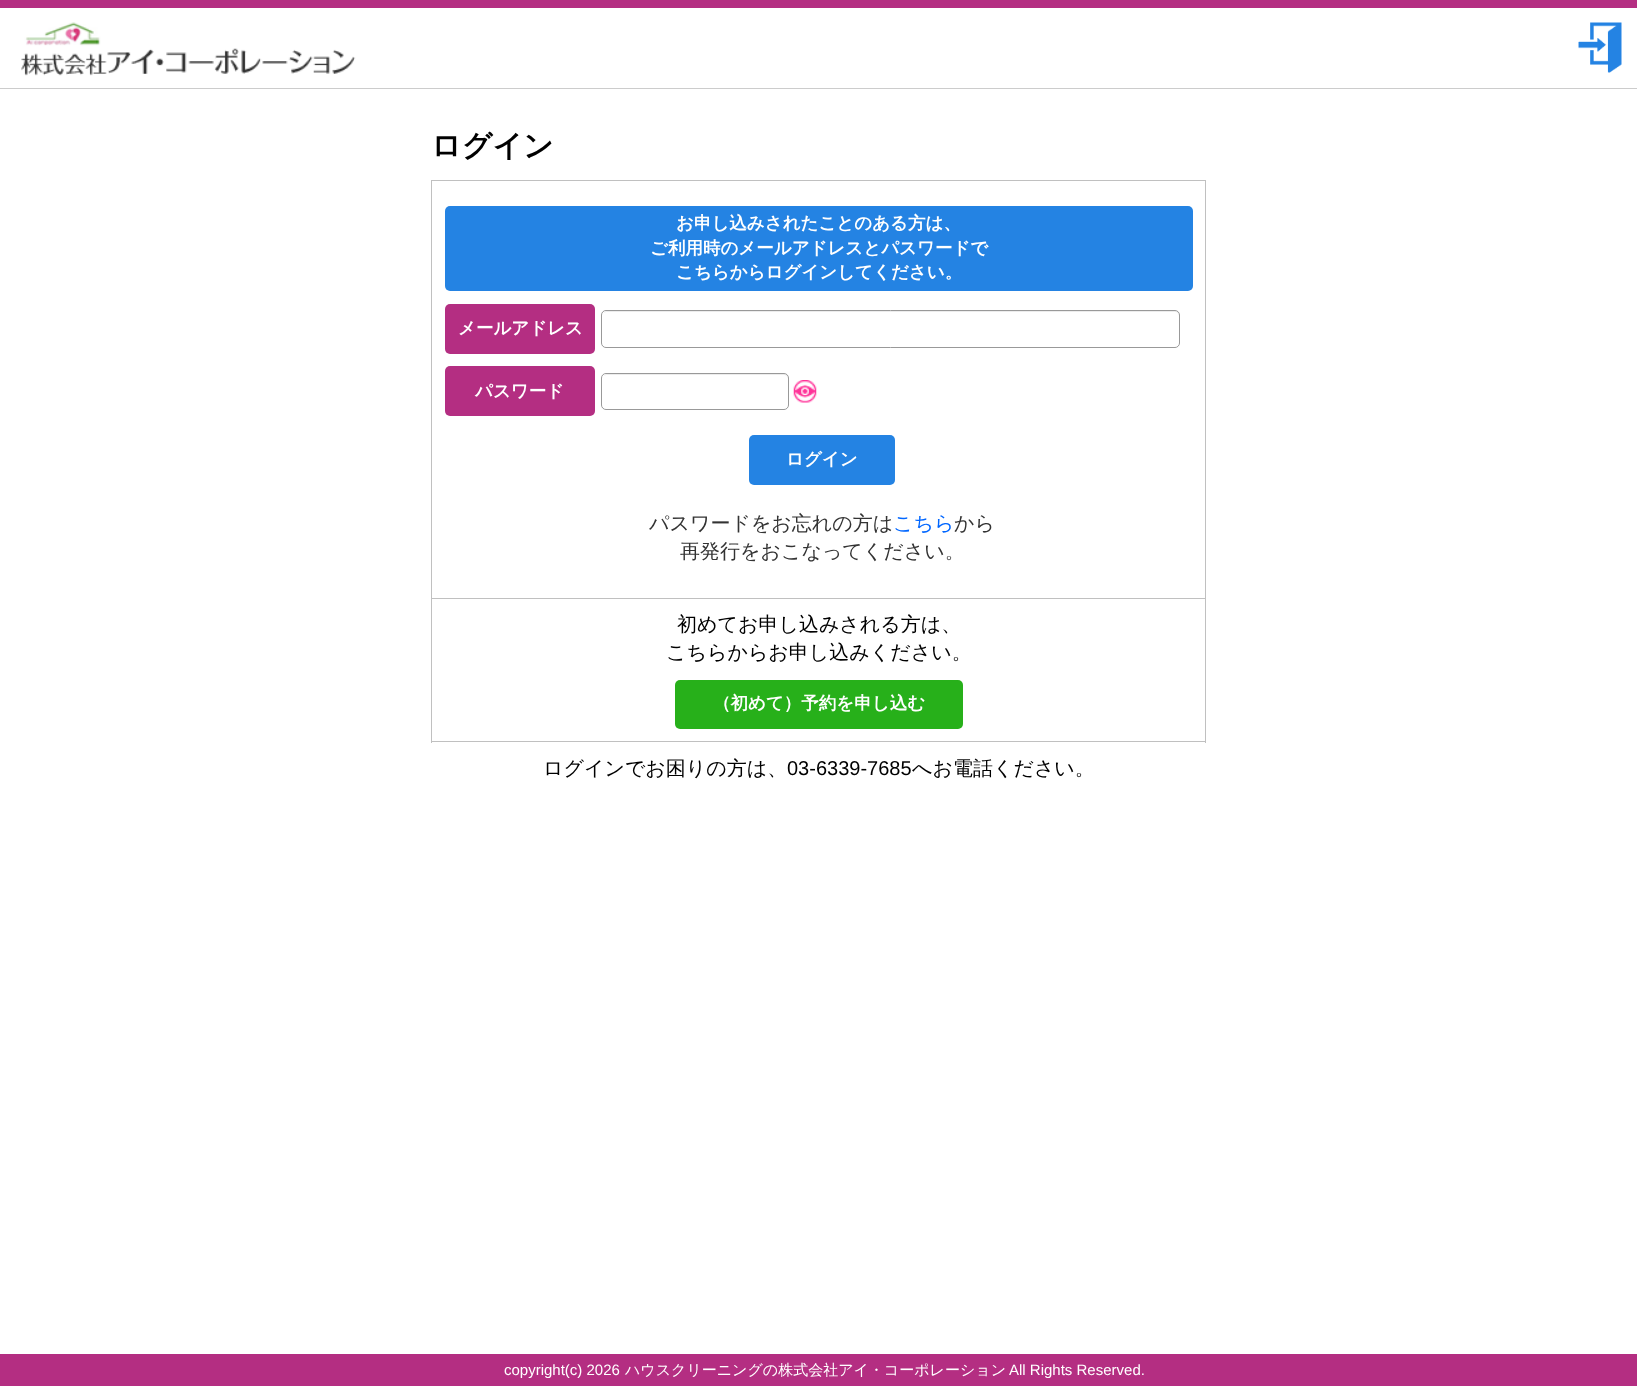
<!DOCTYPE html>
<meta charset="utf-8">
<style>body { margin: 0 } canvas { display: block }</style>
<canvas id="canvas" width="1637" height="1386"></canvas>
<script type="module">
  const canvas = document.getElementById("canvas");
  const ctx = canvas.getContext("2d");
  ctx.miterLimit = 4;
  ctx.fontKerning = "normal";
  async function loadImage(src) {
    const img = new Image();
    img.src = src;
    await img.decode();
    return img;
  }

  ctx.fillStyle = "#ffffff";
  ctx.fillRect(0, 0, 1637, 1386);
  ctx.fillStyle = "#b42e82";
  ctx.fillRect(0, 0, 1637, 8);
  ctx.drawImage(await loadImage("img1.png"), 21, 22, 335, 54);
  ctx.drawImage(await loadImage("img2.png"), 1578, 22, 44, 51);
  ctx.fillStyle = "#cccccc";
  ctx.fillRect(0, 88, 1637, 1);
  ctx.font = "bold 30px WenQuanYi Zen Hei";
  ctx.fillStyle = "#000000";
  ctx.fillText("ログイン", 431, 156);
  ctx.fillStyle = "#c0c0c0";
  ctx.fillRect(431, 180, 775, 1);
  ctx.fillRect(431, 598, 775, 1);
  ctx.fillRect(1205, 598, 1, 145);
  ctx.fillRect(1205, 180, 1, 419);
  ctx.fillRect(431, 741, 775, 1);
  ctx.fillRect(431, 598, 1, 145);
  ctx.fillRect(431, 180, 1, 419);
  ctx.fillStyle = "#2483e3";
  ctx.beginPath();
  ctx.roundRect(445, 206, 748, 85, 5);
  ctx.fill();
  ctx.font = "bold 17.5px WenQuanYi Zen Hei";
  ctx.fillStyle = "#ffffff";
  ctx.fillText("お申し込みされたことのある方は、", 676, 229);
  ctx.fillText("ご利用時のメールアドレスとパスワードで", 650, 254);
  ctx.fillText("こちらからログインしてください。", 676, 278);
  ctx.fillStyle = "#b42e82";
  ctx.beginPath();
  ctx.roundRect(445, 304, 150, 50, 5);
  ctx.fill();
  ctx.fillStyle = "#ffffff";
  ctx.fillText("メールアドレス", 458, 334);
  ctx.fillStyle = "#ececec";
  ctx.beginPath();
  ctx.moveTo(606, 312);
  ctx.lineTo(1175, 312);
  ctx.bezierCurveTo(1177, 312, 1179, 314, 1179, 316);
  ctx.lineTo(1179, 315);
  ctx.bezierCurveTo(1179, 313, 1177, 311, 1175, 311);
  ctx.lineTo(607, 311);
  ctx.bezierCurveTo(606, 311, 604, 312, 604, 313);
  ctx.closePath();
  ctx.fill();
  ctx.beginPath();
  ctx.roundRect(601.5, 310.5, 578, 37, 4.5);
  ctx.strokeStyle = "#999999";
  ctx.stroke();
  ctx.fillStyle = "#b42e82";
  ctx.beginPath();
  ctx.roundRect(445, 366, 150, 50, 5);
  ctx.fill();
  ctx.fillStyle = "#ffffff";
  ctx.fillText("パスワード", 475, 397);
  ctx.fillStyle = "#ececec";
  ctx.beginPath();
  ctx.moveTo(606, 375);
  ctx.lineTo(784, 375);
  ctx.bezierCurveTo(786, 375, 788, 377, 788, 379);
  ctx.lineTo(788, 378);
  ctx.bezierCurveTo(788, 376, 786, 374, 784, 374);
  ctx.lineTo(607, 374);
  ctx.bezierCurveTo(606, 374, 604, 375, 604, 376);
  ctx.closePath();
  ctx.fill();
  ctx.beginPath();
  ctx.roundRect(601.5, 373.5, 187, 36, 4.5);
  ctx.stroke();
  ctx.drawImage(await loadImage("img3.png"), 793, 380, 24, 23);
  ctx.fillStyle = "#2483e3";
  ctx.beginPath();
  ctx.roundRect(749, 435, 146, 50, 5);
  ctx.fill();
  ctx.fillStyle = "#ffffff";
  ctx.fillText("ログイン", 786, 465);
  ctx.font = "500 20px WenQuanYi Zen Hei";
  ctx.fillStyle = "#333333";
  ctx.fillText("パスワードをお忘れの方は", 649, 530);
  ctx.fillStyle = "#0066ff";
  ctx.fillText("こちら", 893, 530);
  ctx.fillStyle = "#333333";
  ctx.fillText("から", 954, 530);
  ctx.fillText("再発行をおこなってください。", 680, 558);
  ctx.fillStyle = "#000000";
  ctx.fillText("初めてお申し込みされる方は、", 677, 631);
  ctx.fillText("こちらからお申し込みください。", 666, 659);
  ctx.fillStyle = "#27b01a";
  ctx.beginPath();
  ctx.roundRect(675, 680, 288, 49, 5);
  ctx.fill();
  ctx.font = "bold 17.5px WenQuanYi Zen Hei";
  ctx.fillStyle = "#ffffff";
  ctx.fillText("（初めて）予約を申し込む", 713, 709);
  ctx.font = "500 20px WenQuanYi Zen Hei";
  ctx.fillStyle = "#000000";
  ctx.fillText("ログインでお困りの方は、", 543, 775);
  ctx.font = "20px Liberation Sans";
  ctx.fillText("03-6339-7685", 787, 775);
  ctx.font = "500 20px WenQuanYi Zen Hei";
  ctx.fillText("へお電話ください。", 912, 775);
  ctx.fillStyle = "#b42e82";
  ctx.fillRect(0, 1354, 1637, 32);
  ctx.font = "15px Liberation Sans";
  ctx.fillStyle = "#ffffff";
  ctx.fillText("copyright(c) 2026", 504, 1375);
  ctx.font = "500 15px WenQuanYi Zen Hei";
  ctx.fillText("ハウスクリーニングの株式会社アイ・コーポレーション", 625, 1375);
  ctx.font = "15px Liberation Sans";
  ctx.fillText("All Rights Reserved.", 1009, 1375);
</script>
